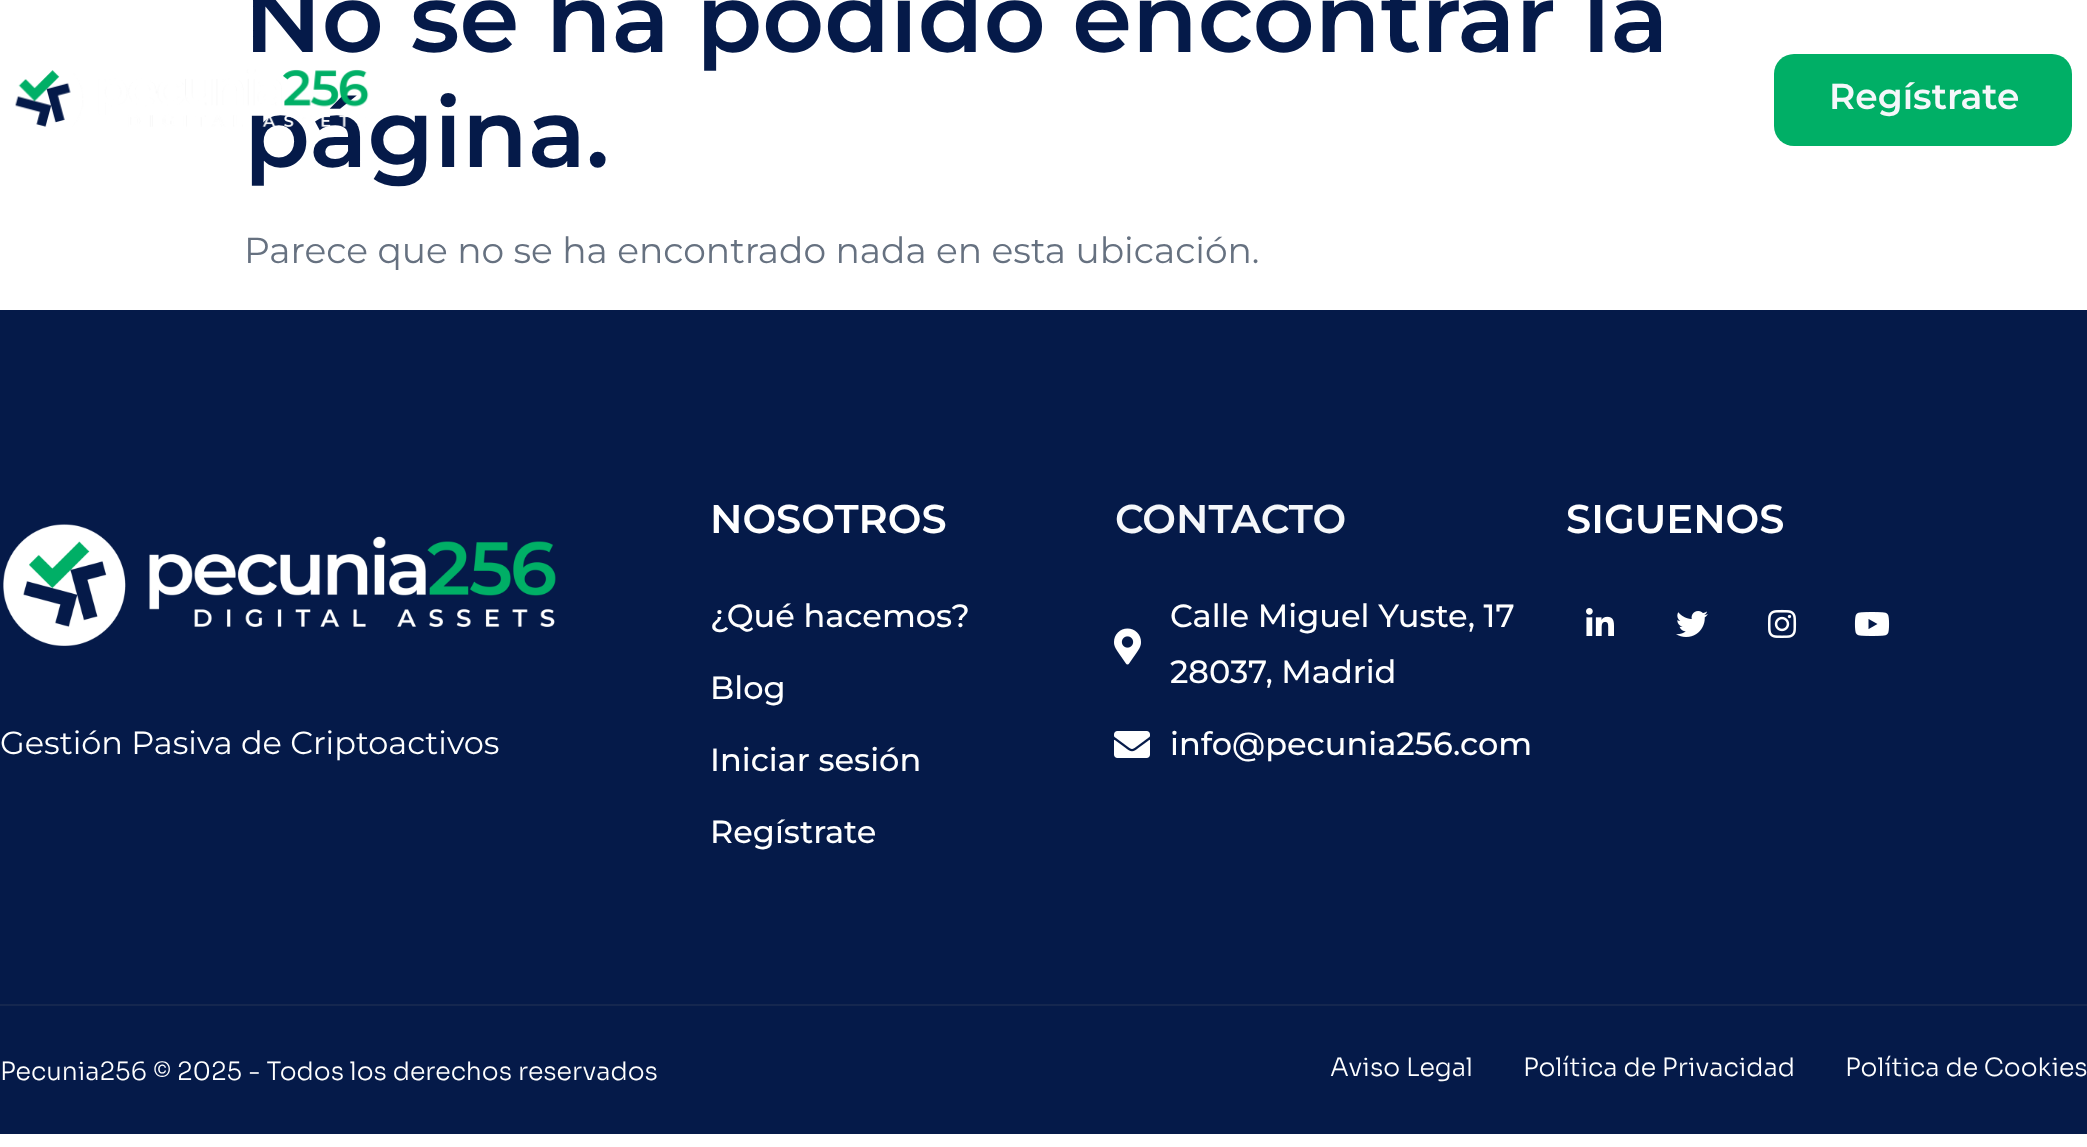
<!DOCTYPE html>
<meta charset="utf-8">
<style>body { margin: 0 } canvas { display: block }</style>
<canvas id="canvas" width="2087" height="1147"></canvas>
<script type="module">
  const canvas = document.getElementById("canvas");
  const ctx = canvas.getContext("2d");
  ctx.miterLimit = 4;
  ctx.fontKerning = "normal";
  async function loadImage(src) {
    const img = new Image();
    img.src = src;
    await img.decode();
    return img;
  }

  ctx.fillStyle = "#ffffff";
  ctx.fillRect(0, 0, 2087, 1147);
  ctx.font = "600 96px Montserrat";
  ctx.fillStyle = "#051a49";
  ctx.fillText("No se ha podido encontrar la", 244, 52);
  ctx.fillText("página.", 244, 167);
  ctx.font = "36px Montserrat";
  ctx.fillStyle = "#667180";
  ctx.fillText("Parece que no se ha encontrado nada en esta ubicación.", 244, 263);
  ctx.drawImage(await loadImage("img1.png"), 15, 69, 354, 58);
  ctx.fillStyle = "#00af66";
  ctx.beginPath();
  ctx.roundRect(1774, 54, 298, 92, 20);
  ctx.fill();
  ctx.font = "600 36px Montserrat";
  ctx.fillStyle = "#f5f7fa";
  ctx.fillText("Regístrate", 1829, 109);
  ctx.fillStyle = "#051a49";
  ctx.fillRect(0, 310, 2087, 694);
  ctx.font = "600 40px Montserrat";
  ctx.fillStyle = "#ffffff";
  ctx.fillText("NOSOTROS", 710, 533);
  ctx.font = "500 32px Montserrat";
  ctx.fillText("¿Qué hacemos?", 710, 627);
  ctx.fillText("Blog", 710, 699);
  ctx.fillText("Iniciar sesión", 710, 771);
  ctx.fillText("Regístrate", 710, 843);
  ctx.font = "600 40px Montserrat";
  ctx.fillStyle = "#f5f7fa";
  ctx.fillText("CONTACTO", 1115, 533);
  ctx.drawImage(await loadImage("img2.png"), 1114, 628, 27, 37);
  ctx.font = "500 32px Montserrat";
  ctx.fillStyle = "#ffffff";
  ctx.fillText("Calle Miguel Yuste, 17", 1170, 627);
  ctx.fillText("28037, Madrid", 1170, 683);
  ctx.drawImage(await loadImage("img3.png"), 1114, 731, 36, 27);
  ctx.fillText("info@pecunia256.com", 1170, 755);
  ctx.font = "600 40px Montserrat";
  ctx.fillText("SIGUENOS", 1566, 533);
  ctx.drawImage(await loadImage("img4.png"), 1586, 608, 28, 28);
  ctx.drawImage(await loadImage("img5.png"), 1676, 611, 32, 26);
  ctx.drawImage(await loadImage("img6.png"), 1768, 609, 29, 29);
  ctx.drawImage(await loadImage("img7.png"), 1854, 612, 36, 24);
  ctx.drawImage(await loadImage("img8.png"), 3, 524, 553, 122);
  ctx.font = "32px Montserrat";
  ctx.fillText("Gestión Pasiva de Criptoactivos", 0, 754);
  ctx.fillStyle = "#051a49";
  ctx.fillRect(0, 1006, 2087, 128);
  ctx.fillStyle = "#15274f";
  ctx.fillRect(0, 1004, 2087, 2);
  ctx.font = "300 25.2px Sora";
  ctx.fillStyle = "#ffffff";
  ctx.fillText("Pecunia256 © 2025 - Todos los derechos reservados", 0, 1080);
  ctx.fillText("Aviso Legal", 1330, 1076);
  ctx.fillText("Política de Privacidad", 1523, 1076);
  ctx.fillText("Política de Cookies", 1845, 1076);
</script>
